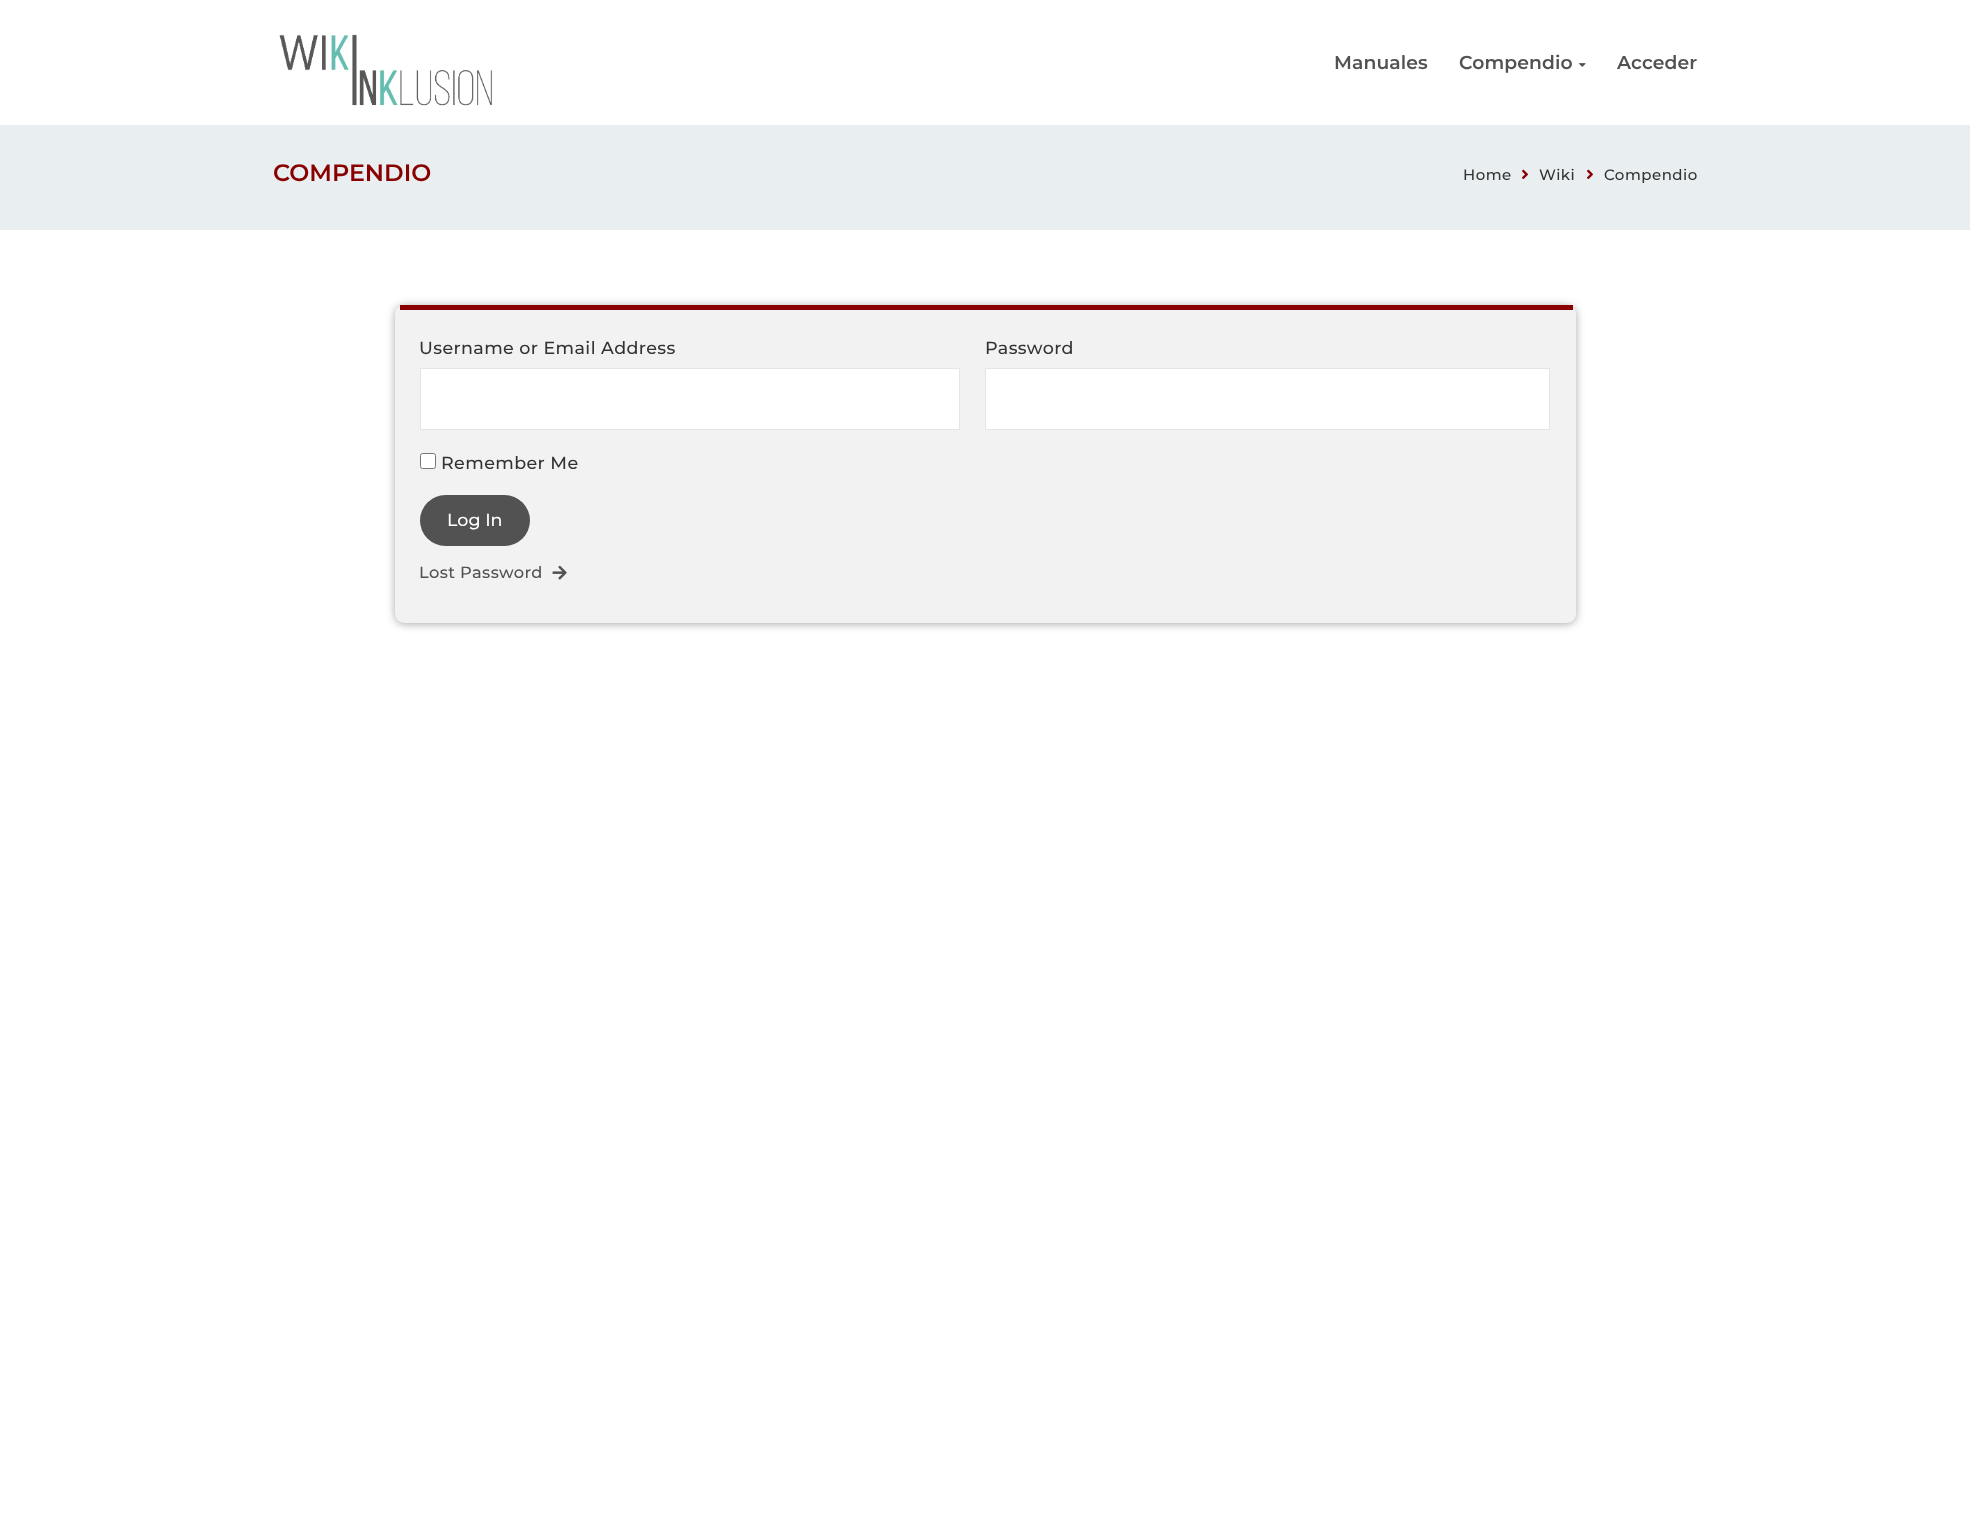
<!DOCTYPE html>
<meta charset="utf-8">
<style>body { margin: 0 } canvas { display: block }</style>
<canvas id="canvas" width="1970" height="1532"></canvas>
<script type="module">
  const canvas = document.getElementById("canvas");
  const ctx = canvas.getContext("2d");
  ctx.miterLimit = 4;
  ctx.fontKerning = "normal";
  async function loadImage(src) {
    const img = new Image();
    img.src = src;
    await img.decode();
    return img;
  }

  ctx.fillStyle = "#ffffff";
  ctx.fillRect(0, 0, 1970, 1532);
  ctx.drawImage(await loadImage("img1.png"), 279, 34, 214, 72);
  ctx.letterSpacing = "0.1px";
  ctx.font = "600 18.75px Montserrat";
  ctx.fillStyle = "#525252";
  ctx.fillText("Manuales", 1334, 69);
  ctx.fillText("Compendio", 1459, 69);
  ctx.drawImage(await loadImage("img2.png"), 1579, 63, 7, 4);
  ctx.fillText("Acceder", 1617, 69);
  ctx.fillStyle = "#e9eef0";
  ctx.fillRect(0, 125, 1970, 105);
  ctx.letterSpacing = "0px";
  ctx.font = "600 23.75px Montserrat";
  ctx.fillStyle = "#880000";
  ctx.fillText("COMPENDIO", 273, 181);
  ctx.letterSpacing = "0.5px";
  ctx.font = "500 15px Montserrat";
  ctx.fillStyle = "#333333";
  ctx.fillText("Home", 1463, 180);
  ctx.drawImage(await loadImage("img3.png"), 1522, 169, 6, 10);
  ctx.fillText("Wiki", 1539, 180);
  ctx.drawImage(await loadImage("img3.png"), 1587, 169, 6, 10);
  ctx.fillText("Compendio", 1604, 180);
  ctx.fillStyle = "rgba(35, 38, 40, 0.4)";
  ctx.filter = "blur(4px)";
  ctx.beginPath();
  ctx.roundRect(395, 306, 1181, 318, 9);
  ctx.fill();
  ctx.filter = "none";
  ctx.fillStyle = "#f3f2f2";
  ctx.beginPath();
  ctx.roundRect(395, 305, 1181, 318, 9);
  ctx.fill();
  ctx.fillStyle = "#880000";
  ctx.fillRect(400, 305, 1173, 5);
  ctx.letterSpacing = "0.4px";
  ctx.font = "500 17.5px Montserrat";
  ctx.fillStyle = "#333333";
  ctx.fillText("Username or Email Address", 419, 354);
  ctx.fillStyle = "#ffffff";
  ctx.beginPath();
  ctx.rect(420.5, 368.5, 539, 61);
  ctx.fill();
  ctx.strokeStyle = "#e5e5e5";
  ctx.stroke();
  ctx.fillStyle = "#333333";
  ctx.fillText("Password", 985, 354);
  ctx.fillStyle = "#ffffff";
  ctx.beginPath();
  ctx.rect(985.5, 368.5, 564, 61);
  ctx.fill();
  ctx.stroke();
  ctx.beginPath();
  ctx.roundRect(420.5, 453.5, 15, 15, 2);
  ctx.fill();
  ctx.strokeStyle = "#767676";
  ctx.stroke();
  ctx.fillStyle = "#333333";
  ctx.fillText("Remember Me", 441, 469);
  ctx.fillStyle = "#525252";
  ctx.beginPath();
  ctx.roundRect(420, 495, 110, 51, 25.5);
  ctx.fill();
  ctx.letterSpacing = "0px";
  ctx.fillStyle = "#ffffff";
  ctx.fillText("Log In", 447, 526);
  ctx.letterSpacing = "0.4px";
  ctx.font = "500 16.25px Montserrat";
  ctx.fillStyle = "#525252";
  ctx.fillText("Lost Password", 419, 578);
  ctx.drawImage(await loadImage("img4.png"), 552, 565, 15, 15);
</script>
